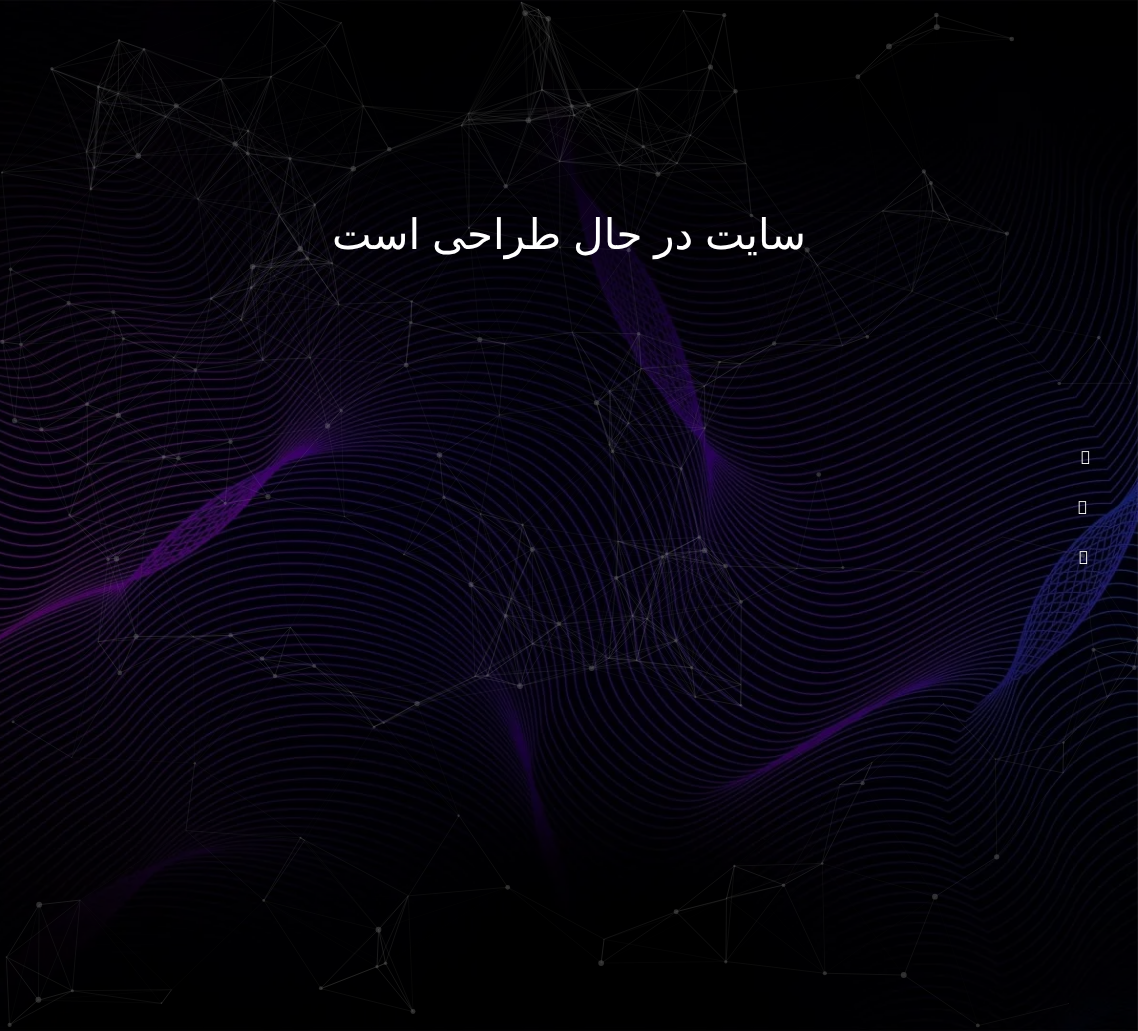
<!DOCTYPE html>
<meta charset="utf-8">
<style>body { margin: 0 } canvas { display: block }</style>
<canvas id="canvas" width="1138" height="1031"></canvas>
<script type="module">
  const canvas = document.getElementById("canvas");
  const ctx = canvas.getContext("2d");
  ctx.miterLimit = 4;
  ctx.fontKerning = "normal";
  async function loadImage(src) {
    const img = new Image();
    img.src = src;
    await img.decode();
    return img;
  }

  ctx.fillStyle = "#ffffff";
  ctx.fillRect(0, 0, 1138, 1031);
  ctx.drawImage(await loadImage("img1.png"), 0, 0, 1138, 1031);
  ctx.drawImage(await loadImage("img2.png"), 0, 0, 1138, 1028);
  ctx.wordSpacing = "-1.5px";
  ctx.direction = "rtl";
  ctx.font = "42px DejaVu Sans";
  ctx.fillText("سایت در حال طراحی است", 806, 249);
  ctx.drawImage(await loadImage("img3.png"), 1081, 451, 9, 13);
  ctx.drawImage(await loadImage("img4.png"), 1078, 501, 9, 13);
  ctx.drawImage(await loadImage("img5.png"), 1079, 551, 9, 13);
</script>
